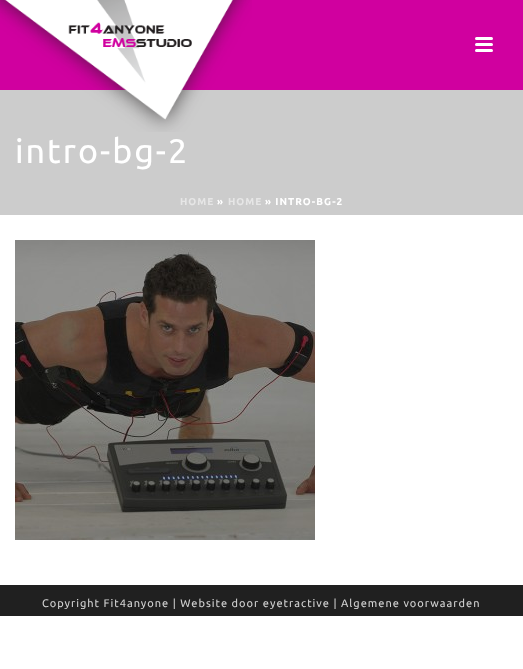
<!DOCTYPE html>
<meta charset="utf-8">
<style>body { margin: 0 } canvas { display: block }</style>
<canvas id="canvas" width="523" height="669"></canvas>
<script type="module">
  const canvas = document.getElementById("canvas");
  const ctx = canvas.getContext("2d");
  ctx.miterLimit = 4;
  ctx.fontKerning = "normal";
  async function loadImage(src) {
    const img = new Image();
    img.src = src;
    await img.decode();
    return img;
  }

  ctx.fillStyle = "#ffffff";
  ctx.fillRect(0, 0, 523, 669);
  ctx.fillStyle = "#cccccc";
  ctx.fillRect(0, 90, 523, 125);
  ctx.fillStyle = "#d0009f";
  ctx.fillRect(0, 0, 523, 90);
  ctx.drawImage(await loadImage("img1.png"), 0, 0, 252, 132);
  ctx.fillStyle = "#ffffff";
  ctx.beginPath();
  ctx.roundRect(475, 37, 18, 3, 1.5);
  ctx.fill();
  ctx.beginPath();
  ctx.roundRect(475, 43, 18, 3, 1.5);
  ctx.fill();
  ctx.beginPath();
  ctx.roundRect(475, 49, 18, 3, 1.5);
  ctx.fill();
  ctx.letterSpacing = "2px";
  ctx.font = "34px Ubuntu";
  ctx.fillText("intro-bg-2", 15, 163);
  ctx.letterSpacing = "1px";
  ctx.font = "bold 10px Ubuntu";
  ctx.fillStyle = "#e6e6e6";
  ctx.fillText("HOME", 180, 205);
  ctx.fillStyle = "#ffffff";
  ctx.fillText("»", 217, 205);
  ctx.fillStyle = "#e6e6e6";
  ctx.fillText("HOME", 228, 205);
  ctx.fillStyle = "#ffffff";
  ctx.fillText("» INTRO-BG-2", 265, 205);
  ctx.drawImage(await loadImage("img2.png"), 15, 240, 300, 300);
  ctx.fillStyle = "#202020";
  ctx.fillRect(0, 585, 523, 31);
  ctx.font = "11px Ubuntu";
  ctx.fillStyle = "#d2d2d2";
  ctx.fillText("Copyright Fit4anyone | Website door eyetractive | Algemene voorwaarden", 42, 607);
</script>
